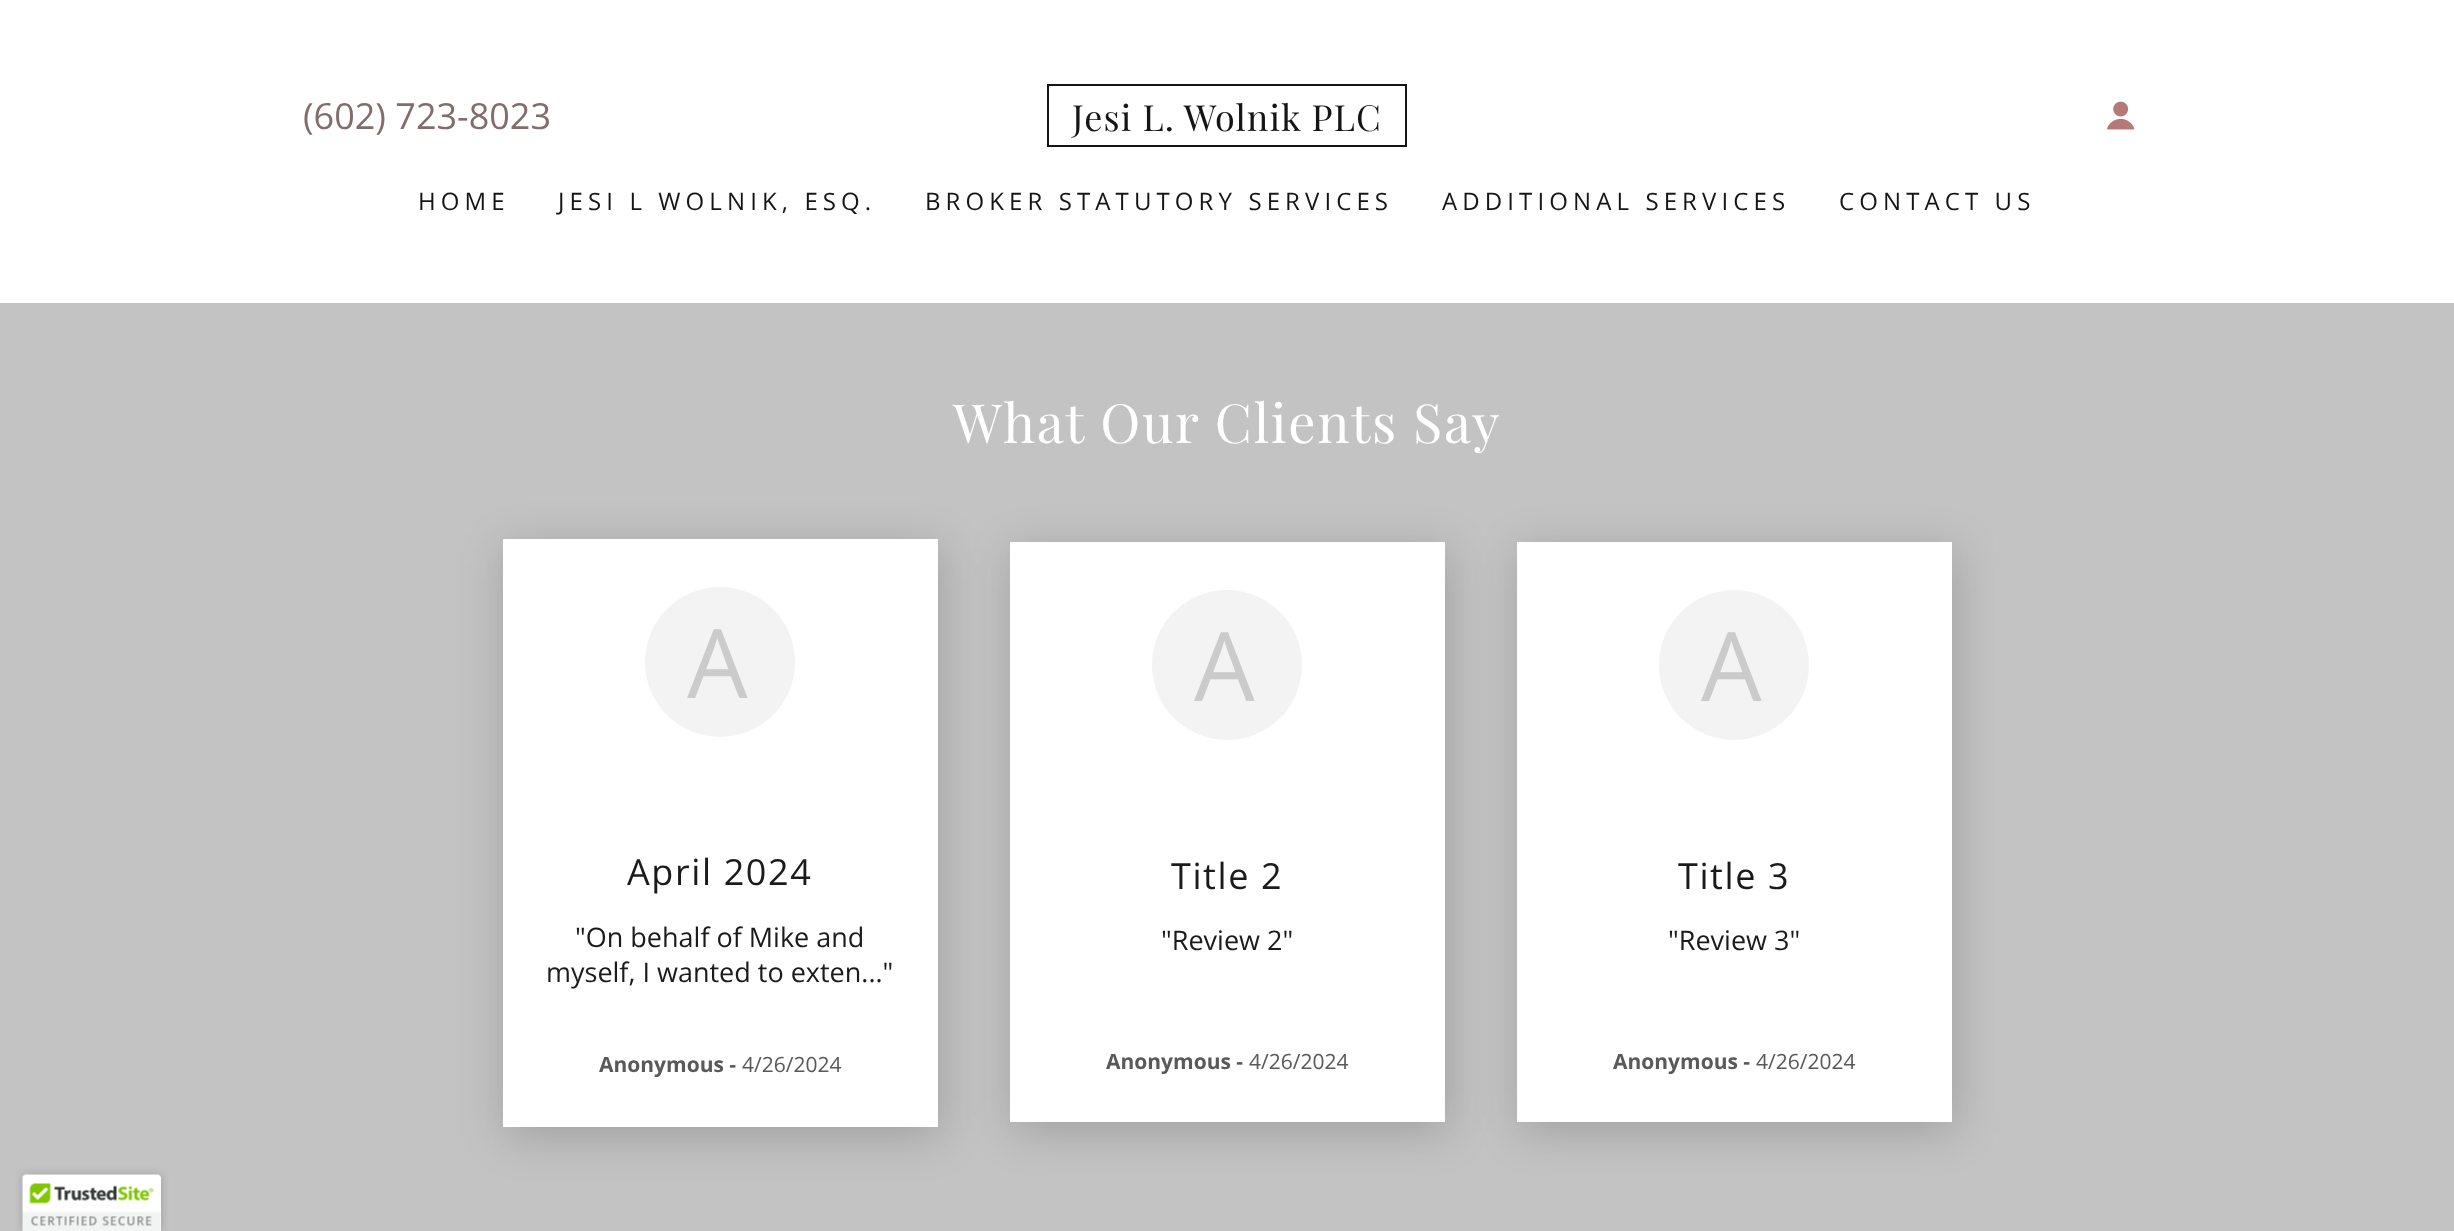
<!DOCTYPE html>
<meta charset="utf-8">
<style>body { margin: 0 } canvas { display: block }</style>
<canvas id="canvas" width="2454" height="1231"></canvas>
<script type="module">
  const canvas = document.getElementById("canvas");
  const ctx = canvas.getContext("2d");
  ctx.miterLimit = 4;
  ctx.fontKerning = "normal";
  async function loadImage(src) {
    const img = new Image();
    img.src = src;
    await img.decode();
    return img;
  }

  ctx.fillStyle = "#ffffff";
  ctx.fillRect(0, 0, 2454, 1231);
  ctx.font = "36px Open Sans";
  ctx.fillStyle = "#826c6c";
  ctx.fillText("(602) 723-8023", 303, 129);
  ctx.strokeStyle = "#151515";
  ctx.lineWidth = 2;
  ctx.strokeRect(1048, 85, 358, 61);
  ctx.letterSpacing = "1.1px";
  ctx.font = "36px Playfair Display";
  ctx.fillStyle = "#151515";
  ctx.fillText("Jesi L. Wolnik PLC", 1072, 131);
  ctx.drawImage(await loadImage("img1.png"), 2107, 101, 28, 29);
  ctx.letterSpacing = "5.1px";
  ctx.font = "24px Open Sans";
  ctx.fillText("HOME", 418, 210);
  ctx.fillText("JESI L WOLNIK, ESQ.", 558, 210);
  ctx.fillText("BROKER STATUTORY SERVICES", 925, 210);
  ctx.fillText("ADDITIONAL SERVICES", 1442, 210);
  ctx.fillText("CONTACT US", 1839, 210);
  ctx.fillStyle = "#c3c3c3";
  ctx.fillRect(0, 303, 2454, 928);
  ctx.letterSpacing = "1.7px";
  ctx.font = "54px Playfair Display";
  ctx.fillStyle = "#ffffff";
  ctx.fillText("What Our Clients Say", 953, 443);
  ctx.fillStyle = "rgba(0, 0, 0, 0.18)";
  ctx.filter = "blur(22.5px)";
  ctx.beginPath();
  ctx.rect(506, 548, 435, 588);
  ctx.fill();
  ctx.filter = "none";
  ctx.fillStyle = "#ffffff";
  ctx.fillRect(503, 539, 435, 588);
  ctx.fillStyle = "#f3f3f3";
  ctx.beginPath();
  ctx.arc(720, 662, 75, 0, Math.PI * 2);
  ctx.fill();
  ctx.letterSpacing = "4px";
  ctx.font = "96px Open Sans";
  ctx.fillStyle = "#cbcbcb";
  ctx.fillText("A", 687, 698);
  ctx.letterSpacing = "1.6px";
  ctx.font = "36px Open Sans";
  ctx.fillStyle = "#1b1b1b";
  ctx.fillText("April 2024", 627, 885);
  ctx.letterSpacing = "0px";
  ctx.font = "27px Open Sans";
  ctx.fillText("\"On behalf of Mike and", 575, 947);
  ctx.fillText("myself, I wanted to exten...\"", 546, 982);
  ctx.font = "bold 21px Open Sans";
  ctx.fillStyle = "#595959";
  ctx.fillText("Anonymous -", 599, 1072);
  ctx.font = "21px Open Sans";
  ctx.fillText("4/26/2024", 742, 1072);
  ctx.fillStyle = "rgba(0, 0, 0, 0.18)";
  ctx.filter = "blur(22.5px)";
  ctx.beginPath();
  ctx.rect(1013, 551, 435, 580);
  ctx.fill();
  ctx.filter = "none";
  ctx.fillStyle = "#ffffff";
  ctx.fillRect(1010, 542, 435, 580);
  ctx.fillStyle = "#f3f3f3";
  ctx.beginPath();
  ctx.arc(1227, 665, 75, 0, Math.PI * 2);
  ctx.fill();
  ctx.letterSpacing = "4px";
  ctx.font = "96px Open Sans";
  ctx.fillStyle = "#cbcbcb";
  ctx.fillText("A", 1194, 701);
  ctx.letterSpacing = "1.6px";
  ctx.font = "36px Open Sans";
  ctx.fillStyle = "#1b1b1b";
  ctx.fillText("Title 2", 1171, 889);
  ctx.letterSpacing = "0px";
  ctx.font = "27px Open Sans";
  ctx.fillText("\"Review 2\"", 1161, 950);
  ctx.font = "bold 21px Open Sans";
  ctx.fillStyle = "#595959";
  ctx.fillText("Anonymous -", 1106, 1069);
  ctx.font = "21px Open Sans";
  ctx.fillText("4/26/2024", 1249, 1069);
  ctx.fillStyle = "rgba(0, 0, 0, 0.18)";
  ctx.filter = "blur(22.5px)";
  ctx.beginPath();
  ctx.rect(1520, 551, 435, 580);
  ctx.fill();
  ctx.filter = "none";
  ctx.fillStyle = "#ffffff";
  ctx.fillRect(1517, 542, 435, 580);
  ctx.fillStyle = "#f3f3f3";
  ctx.beginPath();
  ctx.arc(1734, 665, 75, 0, Math.PI * 2);
  ctx.fill();
  ctx.letterSpacing = "4px";
  ctx.font = "96px Open Sans";
  ctx.fillStyle = "#cbcbcb";
  ctx.fillText("A", 1701, 701);
  ctx.letterSpacing = "1.6px";
  ctx.font = "36px Open Sans";
  ctx.fillStyle = "#1b1b1b";
  ctx.fillText("Title 3", 1678, 889);
  ctx.letterSpacing = "0px";
  ctx.font = "27px Open Sans";
  ctx.fillText("\"Review 3\"", 1668, 950);
  ctx.font = "bold 21px Open Sans";
  ctx.fillStyle = "#595959";
  ctx.fillText("Anonymous -", 1613, 1069);
  ctx.font = "21px Open Sans";
  ctx.fillText("4/26/2024", 1756, 1069);
  ctx.fillStyle = "rgba(0, 0, 0, 0.2)";
  ctx.filter = "blur(4px)";
  ctx.beginPath();
  ctx.roundRect(23, 1175, 138, 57, 3);
  ctx.fill();
  ctx.filter = "none";
  ctx.fillStyle = "#ffffff";
  ctx.beginPath();
  ctx.moveTo(26, 1175);
  ctx.lineTo(158, 1175);
  ctx.bezierCurveTo(159.5, 1175, 161, 1176.5, 161, 1178);
  ctx.lineTo(161, 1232);
  ctx.lineTo(23, 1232);
  ctx.lineTo(23, 1178);
  ctx.bezierCurveTo(23, 1176.5, 24.5, 1175, 26, 1175);
  ctx.closePath();
  ctx.fill();
  ctx.drawImage(await loadImage("img2.png"), 22, 1174, 139, 57);
</script>
